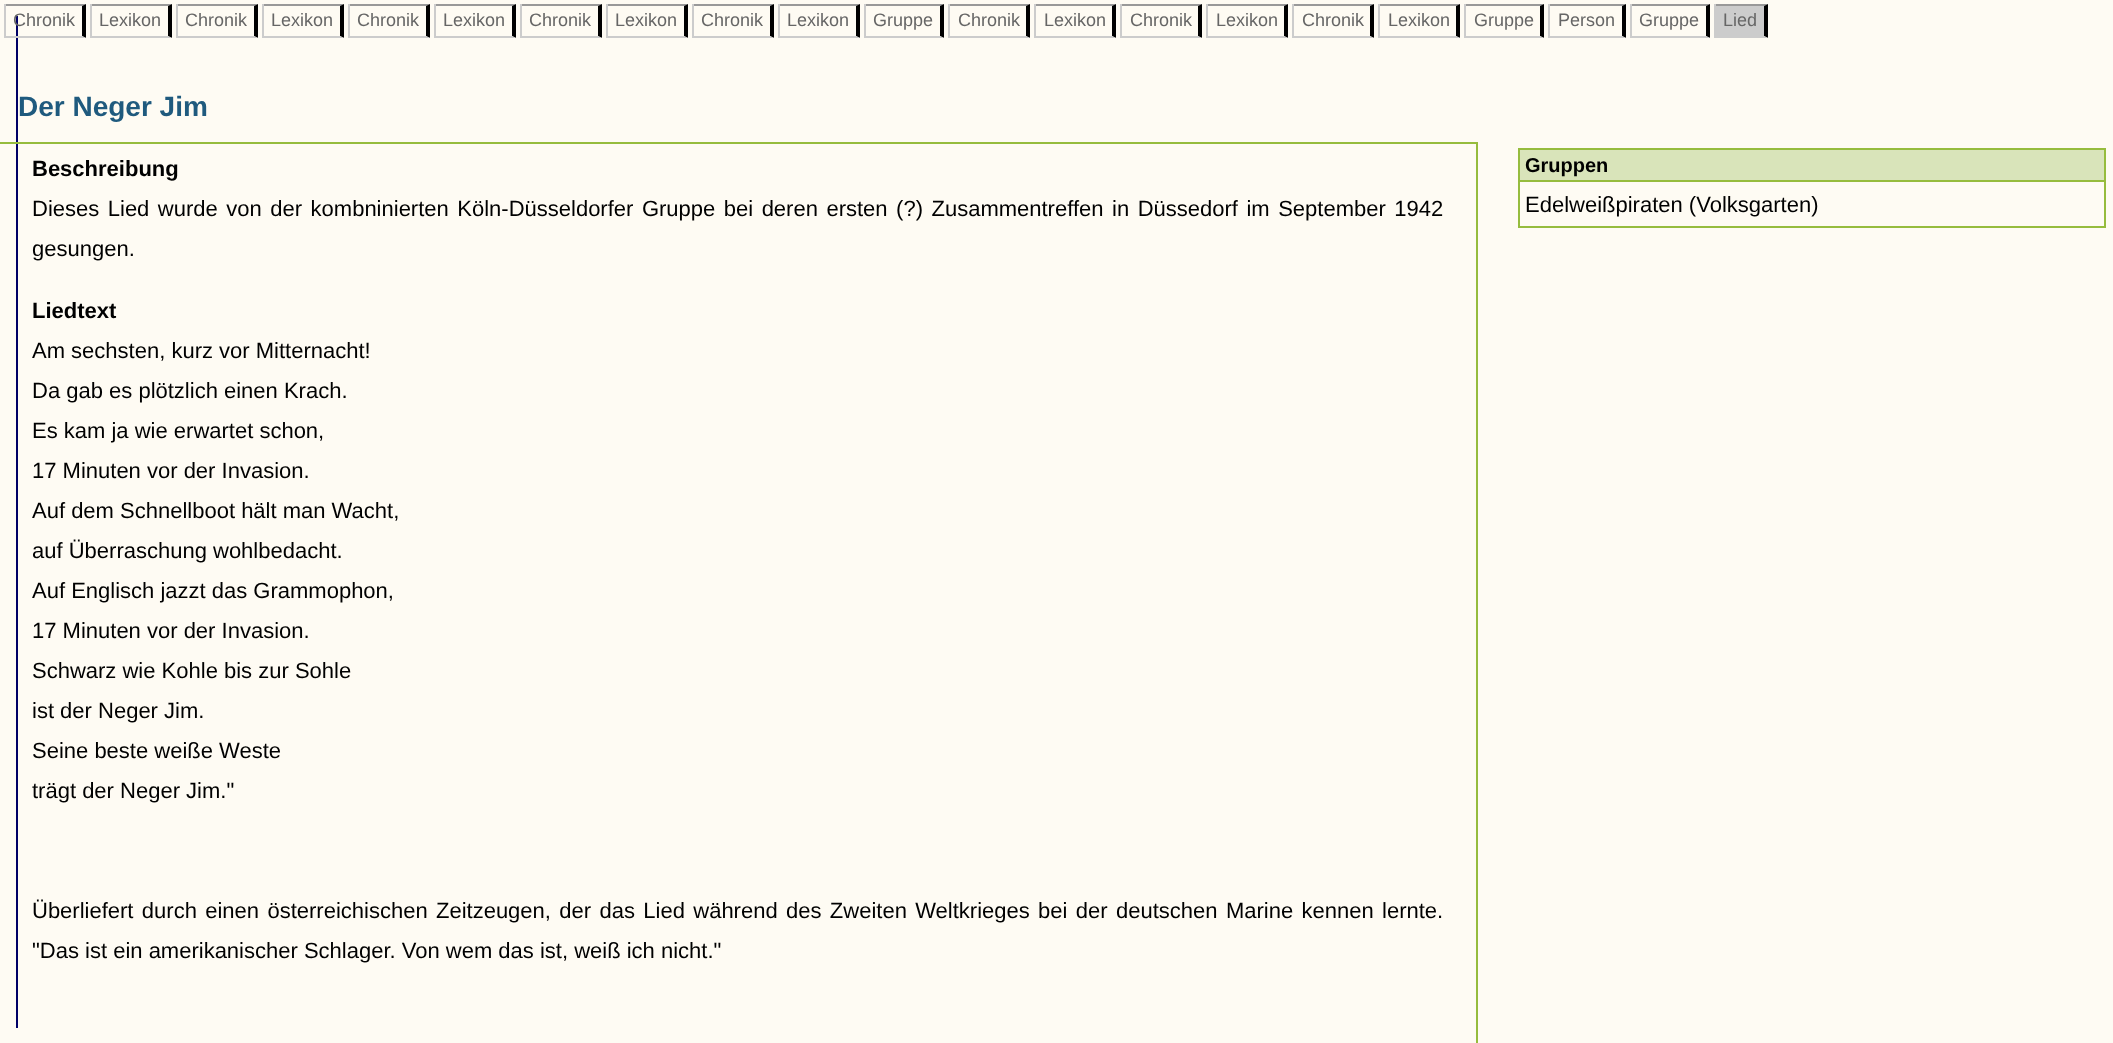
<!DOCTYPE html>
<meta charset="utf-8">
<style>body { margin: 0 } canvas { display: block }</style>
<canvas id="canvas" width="2113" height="1043"></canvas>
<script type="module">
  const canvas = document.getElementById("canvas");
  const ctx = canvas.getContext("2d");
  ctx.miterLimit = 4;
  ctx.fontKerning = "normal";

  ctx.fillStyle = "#fefbf3";
  ctx.fillRect(0, 0, 2113, 1043);
  ctx.fillStyle = "#000066";
  ctx.fillRect(16, 16, 2, 1012);
  ctx.fillStyle = "#999999";
  ctx.beginPath();
  ctx.moveTo(4, 4);
  ctx.lineTo(86, 4);
  ctx.lineTo(82, 6);
  ctx.lineTo(6, 6);
  ctx.closePath();
  ctx.fill();
  ctx.fillStyle = "#000000";
  ctx.beginPath();
  ctx.moveTo(86, 4);
  ctx.lineTo(86, 38);
  ctx.lineTo(82, 36);
  ctx.lineTo(82, 6);
  ctx.closePath();
  ctx.fill();
  ctx.fillStyle = "#cccccc";
  ctx.beginPath();
  ctx.moveTo(86, 38);
  ctx.lineTo(4, 38);
  ctx.lineTo(6, 36);
  ctx.lineTo(82, 36);
  ctx.closePath();
  ctx.fill();
  ctx.fillRect(4, 4, 2, 34);
  ctx.font = "18px Liberation Sans";
  ctx.fillStyle = "#666666";
  ctx.fillText("Chronik", 13, 26);
  ctx.fillStyle = "#999999";
  ctx.beginPath();
  ctx.moveTo(90, 4);
  ctx.lineTo(172, 4);
  ctx.lineTo(168, 6);
  ctx.lineTo(92, 6);
  ctx.closePath();
  ctx.fill();
  ctx.fillStyle = "#000000";
  ctx.beginPath();
  ctx.moveTo(172, 4);
  ctx.lineTo(172, 38);
  ctx.lineTo(168, 36);
  ctx.lineTo(168, 6);
  ctx.closePath();
  ctx.fill();
  ctx.fillStyle = "#cccccc";
  ctx.beginPath();
  ctx.moveTo(172, 38);
  ctx.lineTo(90, 38);
  ctx.lineTo(92, 36);
  ctx.lineTo(168, 36);
  ctx.closePath();
  ctx.fill();
  ctx.fillRect(90, 4, 2, 34);
  ctx.fillStyle = "#666666";
  ctx.fillText("Lexikon", 99, 26);
  ctx.fillStyle = "#999999";
  ctx.beginPath();
  ctx.moveTo(176, 4);
  ctx.lineTo(258, 4);
  ctx.lineTo(254, 6);
  ctx.lineTo(178, 6);
  ctx.closePath();
  ctx.fill();
  ctx.fillStyle = "#000000";
  ctx.beginPath();
  ctx.moveTo(258, 4);
  ctx.lineTo(258, 38);
  ctx.lineTo(254, 36);
  ctx.lineTo(254, 6);
  ctx.closePath();
  ctx.fill();
  ctx.fillStyle = "#cccccc";
  ctx.beginPath();
  ctx.moveTo(258, 38);
  ctx.lineTo(176, 38);
  ctx.lineTo(178, 36);
  ctx.lineTo(254, 36);
  ctx.closePath();
  ctx.fill();
  ctx.fillRect(176, 4, 2, 34);
  ctx.fillStyle = "#666666";
  ctx.fillText("Chronik", 185, 26);
  ctx.fillStyle = "#999999";
  ctx.beginPath();
  ctx.moveTo(262, 4);
  ctx.lineTo(344, 4);
  ctx.lineTo(340, 6);
  ctx.lineTo(264, 6);
  ctx.closePath();
  ctx.fill();
  ctx.fillStyle = "#000000";
  ctx.beginPath();
  ctx.moveTo(344, 4);
  ctx.lineTo(344, 38);
  ctx.lineTo(340, 36);
  ctx.lineTo(340, 6);
  ctx.closePath();
  ctx.fill();
  ctx.fillStyle = "#cccccc";
  ctx.beginPath();
  ctx.moveTo(344, 38);
  ctx.lineTo(262, 38);
  ctx.lineTo(264, 36);
  ctx.lineTo(340, 36);
  ctx.closePath();
  ctx.fill();
  ctx.fillRect(262, 4, 2, 34);
  ctx.fillStyle = "#666666";
  ctx.fillText("Lexikon", 271, 26);
  ctx.fillStyle = "#999999";
  ctx.beginPath();
  ctx.moveTo(348, 4);
  ctx.lineTo(430, 4);
  ctx.lineTo(426, 6);
  ctx.lineTo(350, 6);
  ctx.closePath();
  ctx.fill();
  ctx.fillStyle = "#000000";
  ctx.beginPath();
  ctx.moveTo(430, 4);
  ctx.lineTo(430, 38);
  ctx.lineTo(426, 36);
  ctx.lineTo(426, 6);
  ctx.closePath();
  ctx.fill();
  ctx.fillStyle = "#cccccc";
  ctx.beginPath();
  ctx.moveTo(430, 38);
  ctx.lineTo(348, 38);
  ctx.lineTo(350, 36);
  ctx.lineTo(426, 36);
  ctx.closePath();
  ctx.fill();
  ctx.fillRect(348, 4, 2, 34);
  ctx.fillStyle = "#666666";
  ctx.fillText("Chronik", 357, 26);
  ctx.fillStyle = "#999999";
  ctx.beginPath();
  ctx.moveTo(434, 4);
  ctx.lineTo(516, 4);
  ctx.lineTo(512, 6);
  ctx.lineTo(436, 6);
  ctx.closePath();
  ctx.fill();
  ctx.fillStyle = "#000000";
  ctx.beginPath();
  ctx.moveTo(516, 4);
  ctx.lineTo(516, 38);
  ctx.lineTo(512, 36);
  ctx.lineTo(512, 6);
  ctx.closePath();
  ctx.fill();
  ctx.fillStyle = "#cccccc";
  ctx.beginPath();
  ctx.moveTo(516, 38);
  ctx.lineTo(434, 38);
  ctx.lineTo(436, 36);
  ctx.lineTo(512, 36);
  ctx.closePath();
  ctx.fill();
  ctx.fillRect(434, 4, 2, 34);
  ctx.fillStyle = "#666666";
  ctx.fillText("Lexikon", 443, 26);
  ctx.fillStyle = "#999999";
  ctx.beginPath();
  ctx.moveTo(520, 4);
  ctx.lineTo(602, 4);
  ctx.lineTo(598, 6);
  ctx.lineTo(522, 6);
  ctx.closePath();
  ctx.fill();
  ctx.fillStyle = "#000000";
  ctx.beginPath();
  ctx.moveTo(602, 4);
  ctx.lineTo(602, 38);
  ctx.lineTo(598, 36);
  ctx.lineTo(598, 6);
  ctx.closePath();
  ctx.fill();
  ctx.fillStyle = "#cccccc";
  ctx.beginPath();
  ctx.moveTo(602, 38);
  ctx.lineTo(520, 38);
  ctx.lineTo(522, 36);
  ctx.lineTo(598, 36);
  ctx.closePath();
  ctx.fill();
  ctx.fillRect(520, 4, 2, 34);
  ctx.fillStyle = "#666666";
  ctx.fillText("Chronik", 529, 26);
  ctx.fillStyle = "#999999";
  ctx.beginPath();
  ctx.moveTo(606, 4);
  ctx.lineTo(688, 4);
  ctx.lineTo(684, 6);
  ctx.lineTo(608, 6);
  ctx.closePath();
  ctx.fill();
  ctx.fillStyle = "#000000";
  ctx.beginPath();
  ctx.moveTo(688, 4);
  ctx.lineTo(688, 38);
  ctx.lineTo(684, 36);
  ctx.lineTo(684, 6);
  ctx.closePath();
  ctx.fill();
  ctx.fillStyle = "#cccccc";
  ctx.beginPath();
  ctx.moveTo(688, 38);
  ctx.lineTo(606, 38);
  ctx.lineTo(608, 36);
  ctx.lineTo(684, 36);
  ctx.closePath();
  ctx.fill();
  ctx.fillRect(606, 4, 2, 34);
  ctx.fillStyle = "#666666";
  ctx.fillText("Lexikon", 615, 26);
  ctx.fillStyle = "#999999";
  ctx.beginPath();
  ctx.moveTo(692, 4);
  ctx.lineTo(774, 4);
  ctx.lineTo(770, 6);
  ctx.lineTo(694, 6);
  ctx.closePath();
  ctx.fill();
  ctx.fillStyle = "#000000";
  ctx.beginPath();
  ctx.moveTo(774, 4);
  ctx.lineTo(774, 38);
  ctx.lineTo(770, 36);
  ctx.lineTo(770, 6);
  ctx.closePath();
  ctx.fill();
  ctx.fillStyle = "#cccccc";
  ctx.beginPath();
  ctx.moveTo(774, 38);
  ctx.lineTo(692, 38);
  ctx.lineTo(694, 36);
  ctx.lineTo(770, 36);
  ctx.closePath();
  ctx.fill();
  ctx.fillRect(692, 4, 2, 34);
  ctx.fillStyle = "#666666";
  ctx.fillText("Chronik", 701, 26);
  ctx.fillStyle = "#999999";
  ctx.beginPath();
  ctx.moveTo(778, 4);
  ctx.lineTo(860, 4);
  ctx.lineTo(856, 6);
  ctx.lineTo(780, 6);
  ctx.closePath();
  ctx.fill();
  ctx.fillStyle = "#000000";
  ctx.beginPath();
  ctx.moveTo(860, 4);
  ctx.lineTo(860, 38);
  ctx.lineTo(856, 36);
  ctx.lineTo(856, 6);
  ctx.closePath();
  ctx.fill();
  ctx.fillStyle = "#cccccc";
  ctx.beginPath();
  ctx.moveTo(860, 38);
  ctx.lineTo(778, 38);
  ctx.lineTo(780, 36);
  ctx.lineTo(856, 36);
  ctx.closePath();
  ctx.fill();
  ctx.fillRect(778, 4, 2, 34);
  ctx.fillStyle = "#666666";
  ctx.fillText("Lexikon", 787, 26);
  ctx.fillStyle = "#999999";
  ctx.beginPath();
  ctx.moveTo(864, 4);
  ctx.lineTo(944, 4);
  ctx.lineTo(940, 6);
  ctx.lineTo(866, 6);
  ctx.closePath();
  ctx.fill();
  ctx.fillStyle = "#000000";
  ctx.beginPath();
  ctx.moveTo(944, 4);
  ctx.lineTo(944, 38);
  ctx.lineTo(940, 36);
  ctx.lineTo(940, 6);
  ctx.closePath();
  ctx.fill();
  ctx.fillStyle = "#cccccc";
  ctx.beginPath();
  ctx.moveTo(944, 38);
  ctx.lineTo(864, 38);
  ctx.lineTo(866, 36);
  ctx.lineTo(940, 36);
  ctx.closePath();
  ctx.fill();
  ctx.fillRect(864, 4, 2, 34);
  ctx.fillStyle = "#666666";
  ctx.fillText("Gruppe", 873, 26);
  ctx.fillStyle = "#999999";
  ctx.beginPath();
  ctx.moveTo(948, 4);
  ctx.lineTo(1030, 4);
  ctx.lineTo(1026, 6);
  ctx.lineTo(950, 6);
  ctx.closePath();
  ctx.fill();
  ctx.fillStyle = "#000000";
  ctx.beginPath();
  ctx.moveTo(1030, 4);
  ctx.lineTo(1030, 38);
  ctx.lineTo(1026, 36);
  ctx.lineTo(1026, 6);
  ctx.closePath();
  ctx.fill();
  ctx.fillStyle = "#cccccc";
  ctx.beginPath();
  ctx.moveTo(1030, 38);
  ctx.lineTo(948, 38);
  ctx.lineTo(950, 36);
  ctx.lineTo(1026, 36);
  ctx.closePath();
  ctx.fill();
  ctx.fillRect(948, 4, 2, 34);
  ctx.fillStyle = "#666666";
  ctx.fillText("Chronik", 958, 26);
  ctx.fillStyle = "#999999";
  ctx.beginPath();
  ctx.moveTo(1034, 4);
  ctx.lineTo(1116, 4);
  ctx.lineTo(1112, 6);
  ctx.lineTo(1036, 6);
  ctx.closePath();
  ctx.fill();
  ctx.fillStyle = "#000000";
  ctx.beginPath();
  ctx.moveTo(1116, 4);
  ctx.lineTo(1116, 38);
  ctx.lineTo(1112, 36);
  ctx.lineTo(1112, 6);
  ctx.closePath();
  ctx.fill();
  ctx.fillStyle = "#cccccc";
  ctx.beginPath();
  ctx.moveTo(1116, 38);
  ctx.lineTo(1034, 38);
  ctx.lineTo(1036, 36);
  ctx.lineTo(1112, 36);
  ctx.closePath();
  ctx.fill();
  ctx.fillRect(1034, 4, 2, 34);
  ctx.fillStyle = "#666666";
  ctx.fillText("Lexikon", 1044, 26);
  ctx.fillStyle = "#999999";
  ctx.beginPath();
  ctx.moveTo(1120, 4);
  ctx.lineTo(1202, 4);
  ctx.lineTo(1198, 6);
  ctx.lineTo(1122, 6);
  ctx.closePath();
  ctx.fill();
  ctx.fillStyle = "#000000";
  ctx.beginPath();
  ctx.moveTo(1202, 4);
  ctx.lineTo(1202, 38);
  ctx.lineTo(1198, 36);
  ctx.lineTo(1198, 6);
  ctx.closePath();
  ctx.fill();
  ctx.fillStyle = "#cccccc";
  ctx.beginPath();
  ctx.moveTo(1202, 38);
  ctx.lineTo(1120, 38);
  ctx.lineTo(1122, 36);
  ctx.lineTo(1198, 36);
  ctx.closePath();
  ctx.fill();
  ctx.fillRect(1120, 4, 2, 34);
  ctx.fillStyle = "#666666";
  ctx.fillText("Chronik", 1130, 26);
  ctx.fillStyle = "#999999";
  ctx.beginPath();
  ctx.moveTo(1206, 4);
  ctx.lineTo(1288, 4);
  ctx.lineTo(1284, 6);
  ctx.lineTo(1208, 6);
  ctx.closePath();
  ctx.fill();
  ctx.fillStyle = "#000000";
  ctx.beginPath();
  ctx.moveTo(1288, 4);
  ctx.lineTo(1288, 38);
  ctx.lineTo(1284, 36);
  ctx.lineTo(1284, 6);
  ctx.closePath();
  ctx.fill();
  ctx.fillStyle = "#cccccc";
  ctx.beginPath();
  ctx.moveTo(1288, 38);
  ctx.lineTo(1206, 38);
  ctx.lineTo(1208, 36);
  ctx.lineTo(1284, 36);
  ctx.closePath();
  ctx.fill();
  ctx.fillRect(1206, 4, 2, 34);
  ctx.fillStyle = "#666666";
  ctx.fillText("Lexikon", 1216, 26);
  ctx.fillStyle = "#999999";
  ctx.beginPath();
  ctx.moveTo(1292, 4);
  ctx.lineTo(1374, 4);
  ctx.lineTo(1370, 6);
  ctx.lineTo(1294, 6);
  ctx.closePath();
  ctx.fill();
  ctx.fillStyle = "#000000";
  ctx.beginPath();
  ctx.moveTo(1374, 4);
  ctx.lineTo(1374, 38);
  ctx.lineTo(1370, 36);
  ctx.lineTo(1370, 6);
  ctx.closePath();
  ctx.fill();
  ctx.fillStyle = "#cccccc";
  ctx.beginPath();
  ctx.moveTo(1374, 38);
  ctx.lineTo(1292, 38);
  ctx.lineTo(1294, 36);
  ctx.lineTo(1370, 36);
  ctx.closePath();
  ctx.fill();
  ctx.fillRect(1292, 4, 2, 34);
  ctx.fillStyle = "#666666";
  ctx.fillText("Chronik", 1302, 26);
  ctx.fillStyle = "#999999";
  ctx.beginPath();
  ctx.moveTo(1378, 4);
  ctx.lineTo(1460, 4);
  ctx.lineTo(1456, 6);
  ctx.lineTo(1380, 6);
  ctx.closePath();
  ctx.fill();
  ctx.fillStyle = "#000000";
  ctx.beginPath();
  ctx.moveTo(1460, 4);
  ctx.lineTo(1460, 38);
  ctx.lineTo(1456, 36);
  ctx.lineTo(1456, 6);
  ctx.closePath();
  ctx.fill();
  ctx.fillStyle = "#cccccc";
  ctx.beginPath();
  ctx.moveTo(1460, 38);
  ctx.lineTo(1378, 38);
  ctx.lineTo(1380, 36);
  ctx.lineTo(1456, 36);
  ctx.closePath();
  ctx.fill();
  ctx.fillRect(1378, 4, 2, 34);
  ctx.fillStyle = "#666666";
  ctx.fillText("Lexikon", 1388, 26);
  ctx.fillStyle = "#999999";
  ctx.beginPath();
  ctx.moveTo(1464, 4);
  ctx.lineTo(1544, 4);
  ctx.lineTo(1540, 6);
  ctx.lineTo(1466, 6);
  ctx.closePath();
  ctx.fill();
  ctx.fillStyle = "#000000";
  ctx.beginPath();
  ctx.moveTo(1544, 4);
  ctx.lineTo(1544, 38);
  ctx.lineTo(1540, 36);
  ctx.lineTo(1540, 6);
  ctx.closePath();
  ctx.fill();
  ctx.fillStyle = "#cccccc";
  ctx.beginPath();
  ctx.moveTo(1544, 38);
  ctx.lineTo(1464, 38);
  ctx.lineTo(1466, 36);
  ctx.lineTo(1540, 36);
  ctx.closePath();
  ctx.fill();
  ctx.fillRect(1464, 4, 2, 34);
  ctx.fillStyle = "#666666";
  ctx.fillText("Gruppe", 1474, 26);
  ctx.fillStyle = "#999999";
  ctx.beginPath();
  ctx.moveTo(1548, 4);
  ctx.lineTo(1626, 4);
  ctx.lineTo(1622, 6);
  ctx.lineTo(1550, 6);
  ctx.closePath();
  ctx.fill();
  ctx.fillStyle = "#000000";
  ctx.beginPath();
  ctx.moveTo(1626, 4);
  ctx.lineTo(1626, 38);
  ctx.lineTo(1622, 36);
  ctx.lineTo(1622, 6);
  ctx.closePath();
  ctx.fill();
  ctx.fillStyle = "#cccccc";
  ctx.beginPath();
  ctx.moveTo(1626, 38);
  ctx.lineTo(1548, 38);
  ctx.lineTo(1550, 36);
  ctx.lineTo(1622, 36);
  ctx.closePath();
  ctx.fill();
  ctx.fillRect(1548, 4, 2, 34);
  ctx.fillStyle = "#666666";
  ctx.fillText("Person", 1558, 26);
  ctx.fillStyle = "#999999";
  ctx.beginPath();
  ctx.moveTo(1630, 4);
  ctx.lineTo(1710, 4);
  ctx.lineTo(1706, 6);
  ctx.lineTo(1632, 6);
  ctx.closePath();
  ctx.fill();
  ctx.fillStyle = "#000000";
  ctx.beginPath();
  ctx.moveTo(1710, 4);
  ctx.lineTo(1710, 38);
  ctx.lineTo(1706, 36);
  ctx.lineTo(1706, 6);
  ctx.closePath();
  ctx.fill();
  ctx.fillStyle = "#cccccc";
  ctx.beginPath();
  ctx.moveTo(1710, 38);
  ctx.lineTo(1630, 38);
  ctx.lineTo(1632, 36);
  ctx.lineTo(1706, 36);
  ctx.closePath();
  ctx.fill();
  ctx.fillRect(1630, 4, 2, 34);
  ctx.fillStyle = "#666666";
  ctx.fillText("Gruppe", 1639, 26);
  ctx.fillStyle = "#cccccc";
  ctx.fillRect(1716, 6, 48, 30);
  ctx.fillStyle = "#999999";
  ctx.beginPath();
  ctx.moveTo(1714, 4);
  ctx.lineTo(1768, 4);
  ctx.lineTo(1764, 6);
  ctx.lineTo(1716, 6);
  ctx.closePath();
  ctx.fill();
  ctx.fillStyle = "#000000";
  ctx.beginPath();
  ctx.moveTo(1768, 4);
  ctx.lineTo(1768, 38);
  ctx.lineTo(1764, 36);
  ctx.lineTo(1764, 6);
  ctx.closePath();
  ctx.fill();
  ctx.fillStyle = "#cccccc";
  ctx.beginPath();
  ctx.moveTo(1768, 38);
  ctx.lineTo(1714, 38);
  ctx.lineTo(1716, 36);
  ctx.lineTo(1764, 36);
  ctx.closePath();
  ctx.fill();
  ctx.fillRect(1714, 4, 2, 34);
  ctx.fillStyle = "#666666";
  ctx.fillText("Lied", 1723, 26);
  ctx.font = "bold 28px Liberation Sans";
  ctx.fillStyle = "#1f5a7e";
  ctx.fillText("Der Neger Jim", 18, 116);
  ctx.strokeStyle = "#96bc3d";
  ctx.lineWidth = 2;
  ctx.strokeRect(-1, 143, 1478, 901);
  ctx.font = "bold 22px Liberation Sans";
  ctx.fillStyle = "#000000";
  ctx.fillText("Beschreibung", 32, 176);
  ctx.wordSpacing = "2.4px";
  ctx.font = "22px Liberation Sans";
  ctx.fillText("Dieses Lied wurde von der kombninierten Köln-Düsseldorfer Gruppe bei deren ersten (?) Zusammentreffen in Düssedorf im September 1942", 32, 216);
  ctx.wordSpacing = "0px";
  ctx.fillText("gesungen.", 32, 256);
  ctx.font = "bold 22px Liberation Sans";
  ctx.fillText("Liedtext", 32, 318);
  ctx.font = "22px Liberation Sans";
  ctx.fillText("Am sechsten, kurz vor Mitternacht!", 32, 358);
  ctx.fillText("Da gab es plötzlich einen Krach.", 32, 398);
  ctx.fillText("Es kam ja wie erwartet schon,", 32, 438);
  ctx.fillText("17 Minuten vor der Invasion.", 32, 478);
  ctx.fillText("Auf dem Schnellboot hält man Wacht,", 32, 518);
  ctx.fillText("auf Überraschung wohlbedacht.", 32, 558);
  ctx.fillText("Auf Englisch jazzt das Grammophon,", 32, 598);
  ctx.fillText("17 Minuten vor der Invasion.", 32, 638);
  ctx.fillText("Schwarz wie Kohle bis zur Sohle", 32, 678);
  ctx.fillText("ist der Neger Jim.", 32, 718);
  ctx.fillText("Seine beste weiße Weste", 32, 758);
  ctx.fillText("trägt der Neger Jim.\"", 32, 798);
  ctx.wordSpacing = "2.25px";
  ctx.fillText("Überliefert durch einen österreichischen Zeitzeugen, der das Lied während des Zweiten Weltkrieges bei der deutschen Marine kennen lernte.", 32, 918);
  ctx.wordSpacing = "0px";
  ctx.fillText("\"Das ist ein amerikanischer Schlager. Von wem das ist, weiß ich nicht.\"", 32, 958);
  ctx.fillStyle = "#d9e4ba";
  ctx.fillRect(1520, 150, 584, 30);
  ctx.fillStyle = "#96bc3d";
  ctx.fillRect(1518, 148, 588, 2);
  ctx.fillRect(2104, 148, 2, 32);
  ctx.fillRect(1518, 148, 2, 32);
  ctx.font = "bold 20px Liberation Sans";
  ctx.fillStyle = "#000000";
  ctx.fillText("Gruppen", 1525, 172);
  ctx.strokeRect(1519, 181, 586, 46);
  ctx.font = "22px Liberation Sans";
  ctx.fillText("Edelweißpiraten (Volksgarten)", 1525, 212);
</script>
